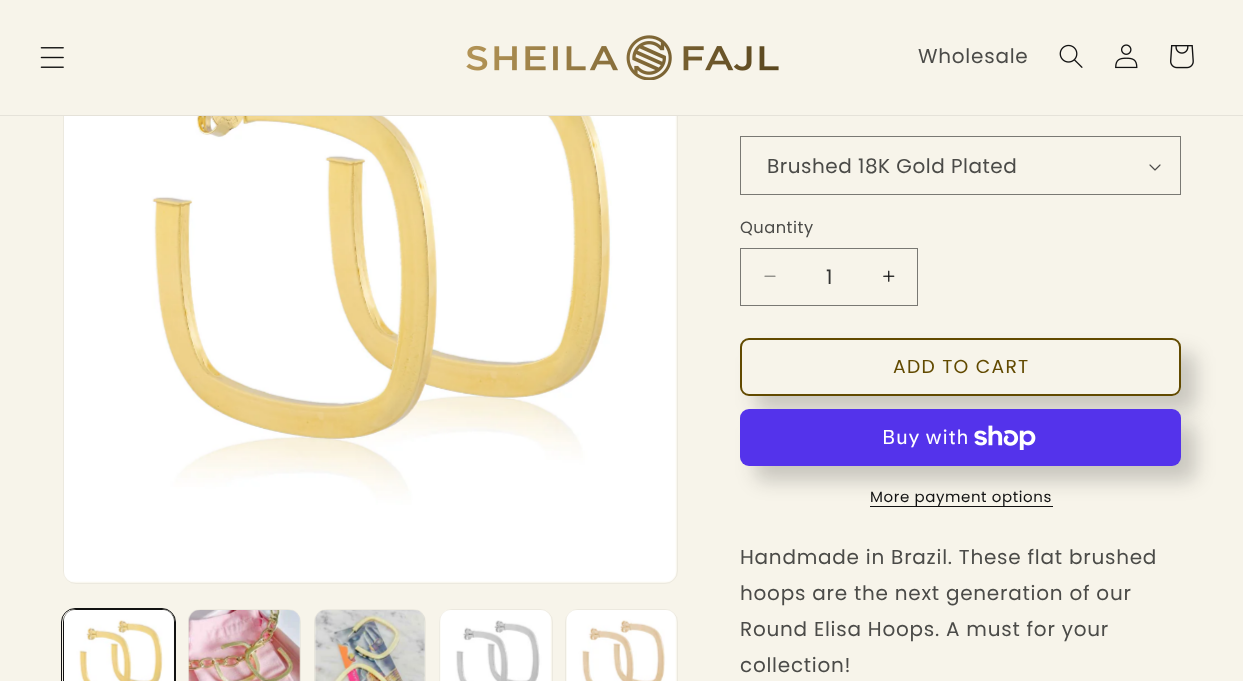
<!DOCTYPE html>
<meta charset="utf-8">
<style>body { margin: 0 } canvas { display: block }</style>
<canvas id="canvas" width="1243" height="681"></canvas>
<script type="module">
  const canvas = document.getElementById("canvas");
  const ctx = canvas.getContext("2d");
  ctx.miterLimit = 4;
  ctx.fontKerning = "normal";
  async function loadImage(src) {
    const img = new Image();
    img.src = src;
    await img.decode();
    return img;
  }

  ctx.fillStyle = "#f7f4ea";
  ctx.fillRect(0, 0, 1243, 681);
  ctx.beginPath();
  ctx.roundRect(63.5, -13.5, 614, 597, 12.5);
  ctx.strokeStyle = "#ece9df";
  ctx.stroke();
  ctx.fillRect(63, 0, 615, 115);
  ctx.fillStyle = "#e5e2d9";
  ctx.fillRect(0, 115, 1243, 1);
  ctx.drawImage(await loadImage("img1.png"), 40, 47, 24, 21);
  ctx.drawImage(await loadImage("img2.png"), 466, 35, 313, 45);
  ctx.letterSpacing = "0.75px";
  ctx.font = "20px Poppins";
  ctx.fillStyle = "#4b4b48";
  ctx.fillText("Wholesale", 918, 63);
  ctx.drawImage(await loadImage("img3.png"), 1059, 44, 24, 24);
  ctx.drawImage(await loadImage("img4.png"), 1115, 44, 23, 25);
  ctx.drawImage(await loadImage("img5.png"), 1170, 45, 24, 24);
  ctx.drawImage(await loadImage("img6.png"), 64, 116, 613, 467);
  ctx.beginPath();
  ctx.roundRect(61.5, 608.5, 114, 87, 13.5);
  ctx.strokeStyle = "#121212";
  ctx.stroke();
  ctx.beginPath();
  ctx.roundRect(63.5, 609.5, 111, 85, 12.5);
  ctx.stroke();
  ctx.drawImage(await loadImage("img7.png"), 64, 610, 110, 71);
  ctx.beginPath();
  ctx.roundRect(188.5, 609.5, 112, 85, 12.5);
  ctx.strokeStyle = "#ece9df";
  ctx.stroke();
  ctx.drawImage(await loadImage("img8.png"), 188, 610, 113, 71);
  ctx.beginPath();
  ctx.roundRect(314.5, 609.5, 111, 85, 12.5);
  ctx.stroke();
  ctx.drawImage(await loadImage("img9.png"), 314, 610, 111, 71);
  ctx.beginPath();
  ctx.roundRect(439.5, 609.5, 113, 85, 12.5);
  ctx.stroke();
  ctx.drawImage(await loadImage("img10.png"), 439, 610, 113, 71);
  ctx.beginPath();
  ctx.roundRect(565.5, 609.5, 112, 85, 12.5);
  ctx.stroke();
  ctx.drawImage(await loadImage("img11.png"), 566, 610, 111, 71);
  ctx.drawImage(await loadImage("img12.png"), 1149, 164, 12, 7);
  ctx.strokeStyle = "#797873";
  ctx.strokeRect(740.5, 136.5, 440, 58);
  ctx.letterSpacing = "0.5px";
  ctx.fillText("Brushed 18K Gold Plated", 767, 173);
  ctx.font = "16.25px Poppins";
  ctx.fillText("Quantity", 740, 233);
  ctx.drawImage(await loadImage("img13.png"), 764, 275, 12, 2);
  ctx.drawImage(await loadImage("img14.png"), 883, 270, 12, 12);
  ctx.strokeRect(740.5, 248.5, 177, 57);
  ctx.letterSpacing = "0px";
  ctx.font = "20px Poppins";
  ctx.fillStyle = "#343432";
  ctx.fillText("1", 826, 284);
  ctx.fillStyle = "rgba(18, 18, 18, 0.2)";
  ctx.filter = "blur(9.5px)";
  ctx.beginPath();
  ctx.roundRect(755, 353, 441, 58, 9);
  ctx.fill();
  ctx.filter = "none";
  ctx.filter = "blur(9.5px)";
  ctx.beginPath();
  ctx.roundRect(755, 424, 441, 57, 9);
  ctx.fill();
  ctx.filter = "none";
  ctx.fillStyle = "#f7f4ea";
  ctx.beginPath();
  ctx.roundRect(740, 338, 441, 58, 9);
  ctx.fill();
  ctx.beginPath();
  ctx.roundRect(740.5, 338.5, 440, 57, 8.5);
  ctx.strokeStyle = "#f7f4ea";
  ctx.stroke();
  ctx.beginPath();
  ctx.roundRect(741, 339, 439, 56, 8);
  ctx.strokeStyle = "#624a00";
  ctx.lineWidth = 2;
  ctx.stroke();
  ctx.letterSpacing = "1.25px";
  ctx.font = "18.75px Poppins";
  ctx.fillStyle = "#624a00";
  ctx.fillText("ADD TO CART", 893, 373);
  ctx.fillStyle = "#5433eb";
  ctx.beginPath();
  ctx.roundRect(740, 409, 441, 57, 9);
  ctx.fill();
  ctx.letterSpacing = "0.75px";
  ctx.font = "20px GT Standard";
  ctx.fillStyle = "#ffffff";
  ctx.fillText("Buy with", 882, 444);
  ctx.drawImage(await loadImage("img15.png"), 974, 425, 62, 25);
  ctx.letterSpacing = "0.6px";
  ctx.font = "15px Poppins";
  ctx.fillStyle = "#121212";
  ctx.fillText("More payment options", 870, 502);
  ctx.fillRect(870, 506, 183, 1);
  ctx.letterSpacing = "0.75px";
  ctx.font = "20px Poppins";
  ctx.fillStyle = "#4b4b48";
  ctx.fillText("Handmade in Brazil. These flat brushed", 740, 564);
  ctx.fillText("hoops are the next generation of our", 740, 600);
  ctx.fillText("Round Elisa Hoops. A must for your", 740, 636);
  ctx.fillText("collection!", 740, 672);
</script>
